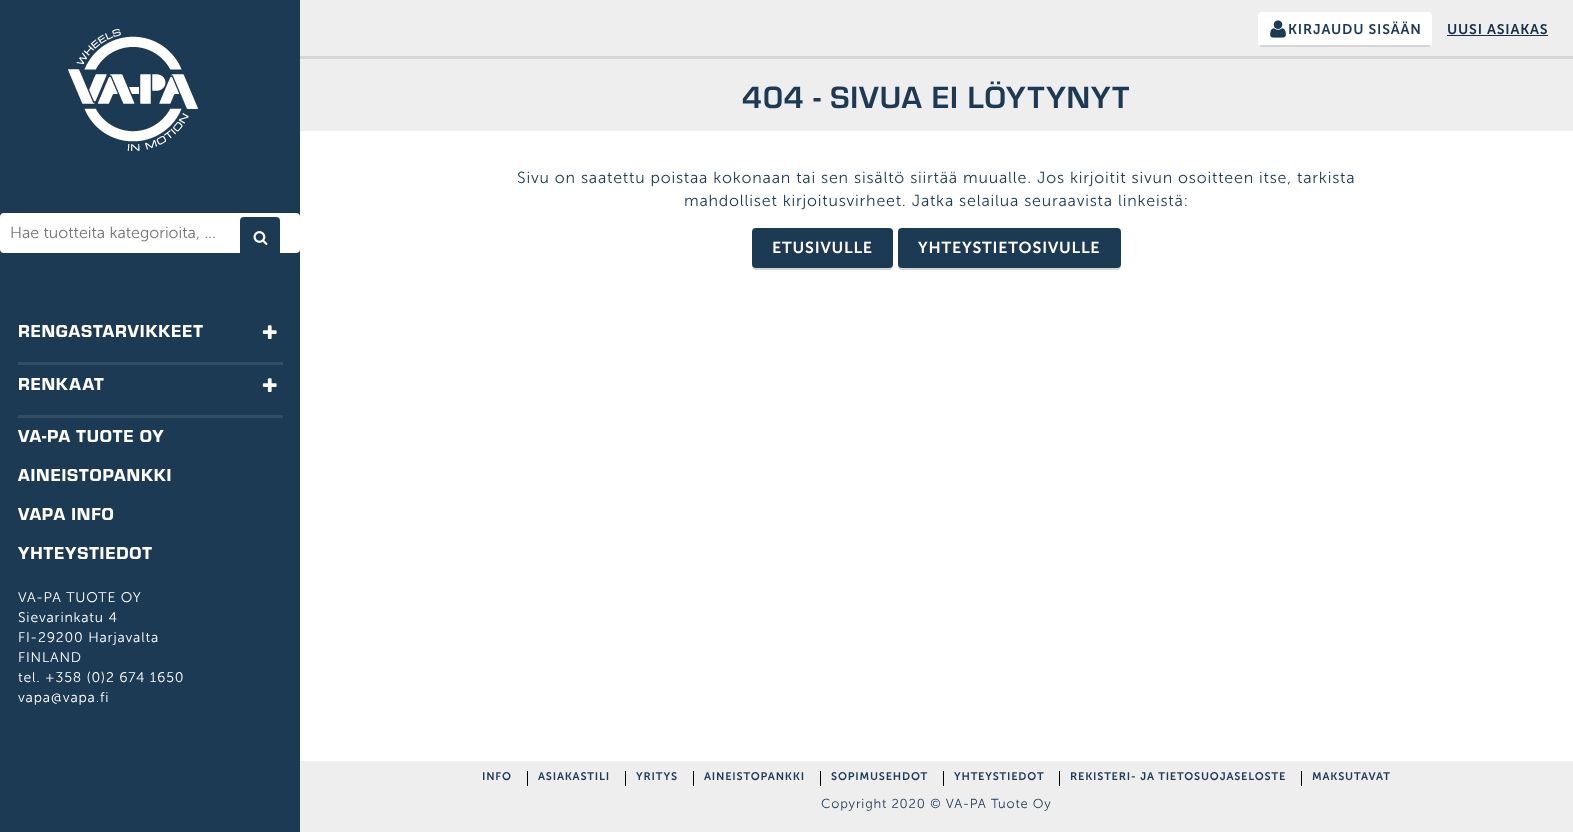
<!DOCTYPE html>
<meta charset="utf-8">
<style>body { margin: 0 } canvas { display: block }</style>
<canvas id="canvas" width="1573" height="832"></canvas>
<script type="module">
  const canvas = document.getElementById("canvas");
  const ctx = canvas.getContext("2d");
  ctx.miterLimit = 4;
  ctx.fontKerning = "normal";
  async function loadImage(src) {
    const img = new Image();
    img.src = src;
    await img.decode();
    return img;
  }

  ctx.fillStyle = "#eeeeee";
  ctx.fillRect(0, 0, 1573, 832);
  ctx.fillStyle = "#ffffff";
  ctx.beginPath();
  ctx.roundRect(1258, 12, 174, 35, 4);
  ctx.fill();
  ctx.fillStyle = "#d6d6d6";
  ctx.fillRect(1260, 45, 170, 2);
  ctx.drawImage(await loadImage("img1.png"), 1270, 20, 16, 18);
  ctx.letterSpacing = "0.8px";
  ctx.font = "600 14px 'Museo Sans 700'";
  ctx.fillStyle = "#1d3a55";
  ctx.fillText("KIRJAUDU SISÄÄN", 1288, 34);
  ctx.fillStyle = "#172e44";
  ctx.fillText("UUSI ASIAKAS", 1447, 34);
  ctx.fillRect(1447, 35, 101, 1);
  ctx.fillStyle = "#d6d6d6";
  ctx.fillRect(300, 56, 1273, 3);
  ctx.fillStyle = "#1d3a55";
  ctx.fillRect(0, 0, 300, 832);
  ctx.drawImage(await loadImage("img2.png"), 68, 29, 130, 122);
  ctx.fillStyle = "#ffffff";
  ctx.beginPath();
  ctx.roundRect(0, 213, 300, 40, 4);
  ctx.fill();
  ctx.letterSpacing = "0px";
  ctx.font = "300 16px 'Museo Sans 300'";
  ctx.fillStyle = "#757575";
  ctx.fillText("Hae tuotteita kategorioita, ...", 10, 238);
  ctx.fillStyle = "#1d3a55";
  ctx.beginPath();
  ctx.roundRect(240, 217, 40, 40, 4);
  ctx.fill();
  ctx.drawImage(await loadImage("img3.png"), 253, 231, 15, 14);
  ctx.letterSpacing = "0.8px";
  ctx.font = "900 18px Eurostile";
  ctx.fillStyle = "#ffffff";
  ctx.fillText("RENGASTARVIKKEET", 18, 337);
  ctx.drawImage(await loadImage("img4.png"), 262, 325, 15, 14);
  ctx.fillStyle = "#344e66";
  ctx.fillRect(18, 362, 265, 3);
  ctx.fillStyle = "#ffffff";
  ctx.fillText("RENKAAT", 18, 390);
  ctx.drawImage(await loadImage("img4.png"), 262, 378, 15, 14);
  ctx.fillStyle = "#344e66";
  ctx.fillRect(18, 415, 265, 3);
  ctx.fillStyle = "#ffffff";
  ctx.fillText("VA-PA TUOTE OY", 18, 442);
  ctx.fillText("AINEISTOPANKKI", 18, 481);
  ctx.fillText("VAPA INFO", 18, 520);
  ctx.fillText("YHTEYSTIEDOT", 18, 559);
  ctx.font = "300 14px 'Museo Sans 300'";
  ctx.fillText("VA-PA TUOTE OY", 18, 602);
  ctx.fillText("Sievarinkatu 4", 18, 622);
  ctx.fillText("FI-29200 Harjavalta", 18, 642);
  ctx.fillText("FINLAND", 18, 662);
  ctx.fillText("tel. +358 (0)2 674 1650", 18, 682);
  ctx.fillText("vapa@vapa.fi", 18, 702);
  ctx.fillRect(300, 131, 1273, 630);
  ctx.font = "bold 32px Eurostile";
  ctx.fillStyle = "#1d3a55";
  ctx.fillText("404 - SIVUA EI LÖYTYNYT", 742, 108);
  ctx.font = "300 16px 'Museo Sans 300'";
  ctx.fillText("Sivu on saatettu poistaa kokonaan tai sen sisältö siirtää muualle. Jos kirjoitit sivun osoitteen itse, tarkista", 517, 183);
  ctx.fillText("mahdolliset kirjoitusvirheet. Jatka selailua seuraavista linkeistä:", 684, 206);
  ctx.fillStyle = "#d6d6d6";
  ctx.beginPath();
  ctx.moveTo(752, 264);
  ctx.lineTo(752, 266);
  ctx.bezierCurveTo(752, 268, 754, 270, 756, 270);
  ctx.lineTo(889, 270);
  ctx.bezierCurveTo(891, 270, 893, 268, 893, 266);
  ctx.lineTo(893, 264);
  ctx.bezierCurveTo(893, 266, 891, 268, 889, 268);
  ctx.lineTo(756, 268);
  ctx.bezierCurveTo(754, 268, 752, 266, 752, 264);
  ctx.closePath();
  ctx.fill();
  ctx.fillStyle = "#1d3a55";
  ctx.beginPath();
  ctx.roundRect(752, 228, 141, 40, 4);
  ctx.fill();
  ctx.font = "600 16px 'Museo Sans 700'";
  ctx.fillStyle = "#ffffff";
  ctx.fillText("ETUSIVULLE", 772, 253);
  ctx.fillStyle = "#d6d6d6";
  ctx.beginPath();
  ctx.moveTo(898, 264);
  ctx.bezierCurveTo(898, 267, 898, 269, 901, 270);
  ctx.lineTo(1118, 270);
  ctx.bezierCurveTo(1121, 269, 1121, 267, 1121, 264);
  ctx.bezierCurveTo(1121, 266, 1119, 268, 1117, 268);
  ctx.lineTo(902, 268);
  ctx.bezierCurveTo(900, 268, 898, 266, 898, 264);
  ctx.closePath();
  ctx.fill();
  ctx.fillStyle = "#1d3a55";
  ctx.beginPath();
  ctx.roundRect(898, 228, 223, 40, 4);
  ctx.fill();
  ctx.fillStyle = "#ffffff";
  ctx.fillText("YHTEYSTIETOSIVULLE", 918, 253);
  ctx.font = "600 11px 'Museo Sans 700'";
  ctx.fillStyle = "#1d3a55";
  ctx.fillText("INFO", 482, 780);
  ctx.fillStyle = "#000000";
  ctx.fillRect(527, 771, 1, 15);
  ctx.fillStyle = "#1d3a55";
  ctx.fillText("ASIAKASTILI", 538, 780);
  ctx.fillStyle = "#000000";
  ctx.fillRect(625, 771, 1, 15);
  ctx.fillStyle = "#1d3a55";
  ctx.fillText("YRITYS", 636, 780);
  ctx.fillStyle = "#000000";
  ctx.fillRect(693, 771, 1, 15);
  ctx.fillStyle = "#1d3a55";
  ctx.fillText("AINEISTOPANKKI", 704, 780);
  ctx.fillStyle = "#000000";
  ctx.fillRect(820, 771, 1, 15);
  ctx.fillStyle = "#1d3a55";
  ctx.fillText("SOPIMUSEHDOT", 831, 780);
  ctx.fillStyle = "#000000";
  ctx.fillRect(943, 771, 1, 15);
  ctx.fillStyle = "#1d3a55";
  ctx.fillText("YHTEYSTIEDOT", 954, 780);
  ctx.fillStyle = "#000000";
  ctx.fillRect(1059, 771, 1, 15);
  ctx.fillStyle = "#1d3a55";
  ctx.fillText("REKISTERI- JA TIETOSUOJASELOSTE", 1070, 780);
  ctx.fillStyle = "#000000";
  ctx.fillRect(1301, 771, 1, 15);
  ctx.fillStyle = "#1d3a55";
  ctx.fillText("MAKSUTAVAT", 1312, 780);
  ctx.font = "300 13px 'Museo Sans 300'";
  ctx.fillText("Copyright 2020 © VA-PA Tuote Oy", 821, 808);
</script>
